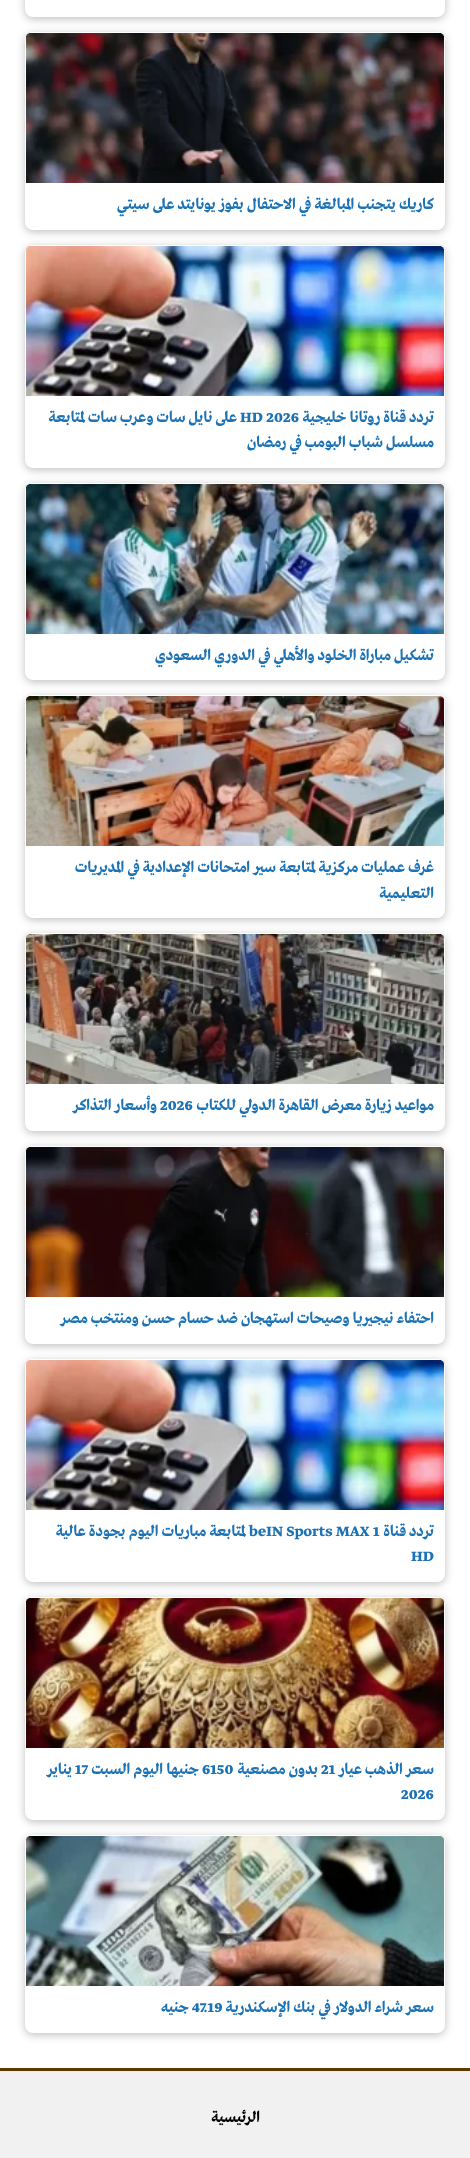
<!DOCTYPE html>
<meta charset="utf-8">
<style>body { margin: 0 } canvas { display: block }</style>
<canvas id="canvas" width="470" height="2158"></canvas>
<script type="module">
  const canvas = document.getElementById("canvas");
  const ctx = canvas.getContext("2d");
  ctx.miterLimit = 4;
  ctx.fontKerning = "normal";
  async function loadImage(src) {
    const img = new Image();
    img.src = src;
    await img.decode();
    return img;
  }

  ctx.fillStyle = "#ffffff";
  ctx.fillRect(0, 0, 470, 2158);
  ctx.fillStyle = "rgba(0, 0, 0, 0.25)";
  ctx.filter = "blur(4px)";
  ctx.beginPath();
  ctx.roundRect(25, -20, 420, 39, 8);
  ctx.fill();
  ctx.filter = "none";
  ctx.fillStyle = "#ffffff";
  ctx.beginPath();
  ctx.roundRect(25, -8, 420, 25, 8);
  ctx.fill();
  ctx.fillStyle = "rgba(0, 0, 0, 0.25)";
  ctx.filter = "blur(4px)";
  ctx.beginPath();
  ctx.roundRect(25, 34, 420, 198, 8);
  ctx.fill();
  ctx.filter = "none";
  ctx.fillStyle = "#ffffff";
  ctx.beginPath();
  ctx.roundRect(25, 32, 420, 198, 8);
  ctx.fill();
  ctx.drawImage(await loadImage("img1.png"), 26, 33, 418, 150);
  ctx.direction = "rtl";
  ctx.font = "bold 16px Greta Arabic";
  ctx.fillStyle = "#1b72b5";
  ctx.fillText("كاريك يتجنب المبالغة في الاحتفال بفوز يونايتد على سيتي", 434, 209);
  ctx.fillStyle = "rgba(0, 0, 0, 0.25)";
  ctx.filter = "blur(4px)";
  ctx.beginPath();
  ctx.roundRect(25, 247, 420, 223, 8);
  ctx.fill();
  ctx.filter = "none";
  ctx.fillStyle = "#ffffff";
  ctx.beginPath();
  ctx.roundRect(25, 245, 420, 223, 8);
  ctx.fill();
  ctx.drawImage(await loadImage("img2.png"), 26, 246, 418, 150);
  ctx.fillStyle = "#1b72b5";
  ctx.fillText("تردد قناة روتانا خليجية", 434, 422);
  ctx.direction = "ltr";
  ctx.fillText("HD 2026", 240, 422);
  ctx.direction = "rtl";
  ctx.fillText("على نايل سات وعرب سات لمتابعة", 237, 422);
  ctx.fillText("مسلسل شباب البومب في رمضان", 434, 447);
  ctx.fillStyle = "rgba(0, 0, 0, 0.25)";
  ctx.filter = "blur(4px)";
  ctx.beginPath();
  ctx.roundRect(25, 485, 420, 197, 8);
  ctx.fill();
  ctx.filter = "none";
  ctx.fillStyle = "#ffffff";
  ctx.beginPath();
  ctx.roundRect(25, 483, 420, 197, 8);
  ctx.fill();
  ctx.drawImage(await loadImage("img3.png"), 26, 484, 418, 150);
  ctx.fillStyle = "#1b72b5";
  ctx.fillText("تشكيل مباراة الخلود والأهلي في الدوري السعودي", 434, 660);
  ctx.fillStyle = "rgba(0, 0, 0, 0.25)";
  ctx.filter = "blur(4px)";
  ctx.beginPath();
  ctx.roundRect(25, 697, 420, 223, 8);
  ctx.fill();
  ctx.filter = "none";
  ctx.fillStyle = "#ffffff";
  ctx.beginPath();
  ctx.roundRect(25, 695, 420, 223, 8);
  ctx.fill();
  ctx.drawImage(await loadImage("img4.png"), 26, 696, 418, 150);
  ctx.fillStyle = "#1b72b5";
  ctx.fillText("غرف عمليات مركزية لمتابعة سير امتحانات الإعدادية في المديريات", 434, 872);
  ctx.fillText("التعليمية", 434, 898);
  ctx.fillStyle = "rgba(0, 0, 0, 0.25)";
  ctx.filter = "blur(4px)";
  ctx.beginPath();
  ctx.roundRect(25, 935, 420, 198, 8);
  ctx.fill();
  ctx.filter = "none";
  ctx.fillStyle = "#ffffff";
  ctx.beginPath();
  ctx.roundRect(25, 933, 420, 198, 8);
  ctx.fill();
  ctx.drawImage(await loadImage("img5.png"), 26, 934, 418, 150);
  ctx.fillStyle = "#1b72b5";
  ctx.fillText("مواعيد زيارة معرض القاهرة الدولي للكتاب", 434, 1110);
  ctx.direction = "ltr";
  ctx.fillText("2026", 160, 1110);
  ctx.direction = "rtl";
  ctx.fillText("وأسعار التذاكر", 157, 1110);
  ctx.fillStyle = "rgba(0, 0, 0, 0.25)";
  ctx.filter = "blur(4px)";
  ctx.beginPath();
  ctx.roundRect(25, 1148, 420, 198, 8);
  ctx.fill();
  ctx.filter = "none";
  ctx.fillStyle = "#ffffff";
  ctx.beginPath();
  ctx.roundRect(25, 1146, 420, 198, 8);
  ctx.fill();
  ctx.drawImage(await loadImage("img6.png"), 26, 1147, 418, 150);
  ctx.fillStyle = "#1b72b5";
  ctx.fillText("احتفاء نيجيريا وصيحات استهجان ضد حسام حسن ومنتخب مصر", 434, 1323);
  ctx.fillStyle = "rgba(0, 0, 0, 0.25)";
  ctx.filter = "blur(4px)";
  ctx.beginPath();
  ctx.roundRect(25, 1361, 420, 223, 8);
  ctx.fill();
  ctx.filter = "none";
  ctx.fillStyle = "#ffffff";
  ctx.beginPath();
  ctx.roundRect(25, 1359, 420, 223, 8);
  ctx.fill();
  ctx.drawImage(await loadImage("img7.png"), 26, 1360, 418, 150);
  ctx.fillStyle = "#1b72b5";
  ctx.fillText("تردد قناة", 434, 1536);
  ctx.direction = "ltr";
  ctx.fillText("beIN Sports MAX 1", 249, 1536);
  ctx.direction = "rtl";
  ctx.fillText("لمتابعة مباريات اليوم بجودة عالية", 246, 1536);
  ctx.direction = "ltr";
  ctx.fillText("HD", 411, 1561);
  ctx.fillStyle = "rgba(0, 0, 0, 0.25)";
  ctx.filter = "blur(4px)";
  ctx.beginPath();
  ctx.roundRect(25, 1599, 420, 223, 8);
  ctx.fill();
  ctx.filter = "none";
  ctx.fillStyle = "#ffffff";
  ctx.beginPath();
  ctx.roundRect(25, 1597, 420, 223, 8);
  ctx.fill();
  ctx.drawImage(await loadImage("img8.png"), 26, 1598, 418, 150);
  ctx.direction = "rtl";
  ctx.fillStyle = "#1b72b5";
  ctx.fillText("سعر الذهب عيار", 434, 1774);
  ctx.direction = "ltr";
  ctx.fillText("21", 321, 1774);
  ctx.direction = "rtl";
  ctx.fillText("بدون مصنعية", 318, 1774);
  ctx.direction = "ltr";
  ctx.fillText("6150", 202, 1774);
  ctx.direction = "rtl";
  ctx.fillText("جنيها اليوم السبت", 199, 1774);
  ctx.direction = "ltr";
  ctx.fillText("17", 75, 1774);
  ctx.direction = "rtl";
  ctx.fillText("يناير", 72, 1774);
  ctx.direction = "ltr";
  ctx.fillText("2026", 401, 1799);
  ctx.fillStyle = "rgba(0, 0, 0, 0.25)";
  ctx.filter = "blur(4px)";
  ctx.beginPath();
  ctx.roundRect(25, 1837, 420, 198, 8);
  ctx.fill();
  ctx.filter = "none";
  ctx.fillStyle = "#ffffff";
  ctx.beginPath();
  ctx.roundRect(25, 1835, 420, 198, 8);
  ctx.fill();
  ctx.drawImage(await loadImage("img9.png"), 26, 1836, 418, 150);
  ctx.direction = "rtl";
  ctx.fillStyle = "#1b72b5";
  ctx.fillText("سعر شراء الدولار في بنك الإسكندرية", 434, 2012);
  ctx.direction = "ltr";
  ctx.fillText("47.19", 192, 2012);
  ctx.direction = "rtl";
  ctx.fillText("جنيه", 189, 2012);
  ctx.fillStyle = "#f1f1f1";
  ctx.fillRect(0, 2071, 470, 87);
  ctx.fillStyle = "#5e3800";
  ctx.fillRect(0, 2068, 470, 3);
  ctx.fillStyle = "#000000";
  ctx.fillText("الرئيسية", 260, 2122);
</script>
